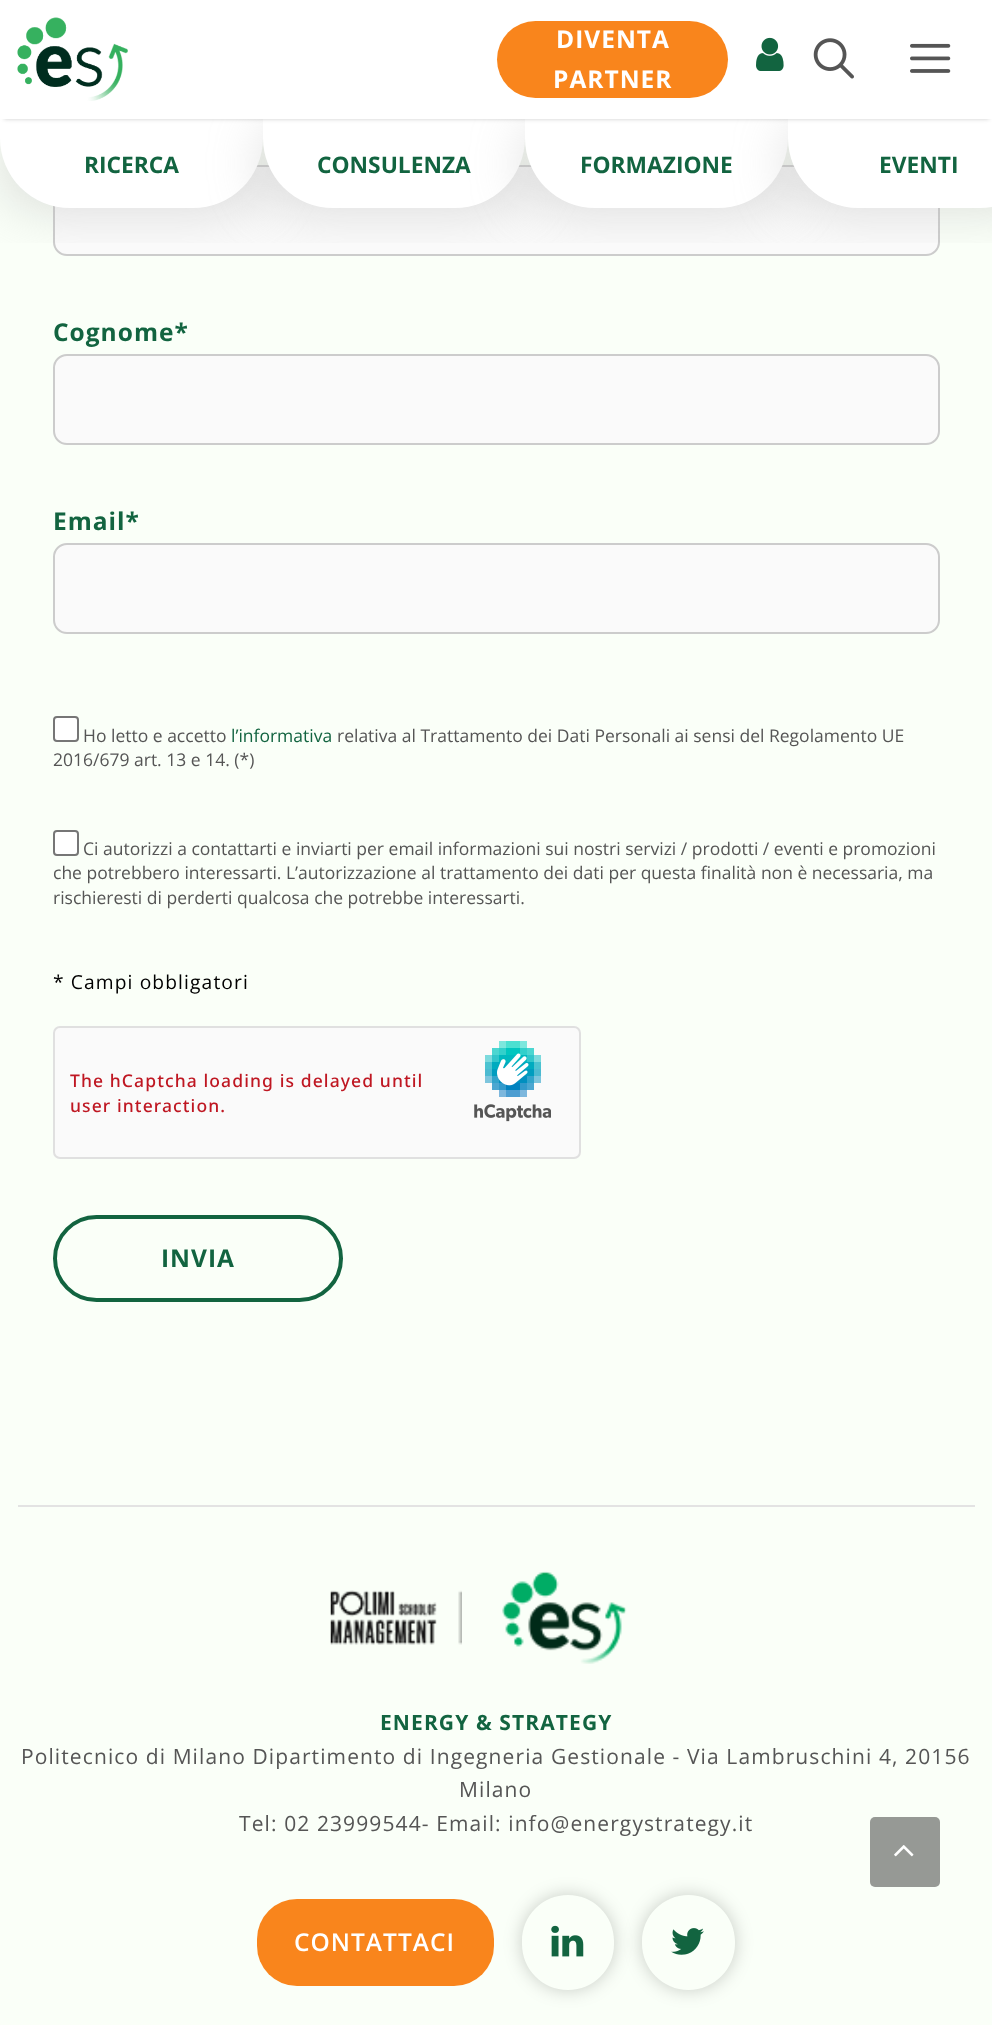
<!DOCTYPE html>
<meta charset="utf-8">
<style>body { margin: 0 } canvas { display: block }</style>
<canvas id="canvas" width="992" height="2025"></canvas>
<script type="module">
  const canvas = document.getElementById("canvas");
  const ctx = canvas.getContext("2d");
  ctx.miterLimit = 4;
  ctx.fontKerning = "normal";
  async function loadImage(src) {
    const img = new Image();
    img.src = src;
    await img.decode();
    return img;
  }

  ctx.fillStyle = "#fafff8";
  ctx.fillRect(0, 0, 992, 2025);
  ctx.fillStyle = "#fafafa";
  ctx.beginPath();
  ctx.roundRect(54, 166, 885, 89, 13);
  ctx.fill();
  ctx.strokeStyle = "#cccccc";
  ctx.lineWidth = 2;
  ctx.stroke();
  ctx.save();
  ctx.beginPath();
  ctx.rect(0, 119, 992, 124);
  ctx.clip();
  ctx.fillStyle = "rgba(186, 186, 186, 0.5)";
  ctx.filter = "blur(27px)";
  ctx.beginPath();
  ctx.roundRect(0, 119, 263, 89, 70);
  ctx.fill();
  ctx.filter = "none";
  ctx.restore();
  ctx.fillStyle = "#ffffff";
  ctx.beginPath();
  ctx.roundRect(0, 119, 263, 89, [0, 0, 70, 70]);
  ctx.fill();
  ctx.save();
  ctx.beginPath();
  ctx.rect(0, 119, 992, 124);
  ctx.clip();
  ctx.fillStyle = "rgba(186, 186, 186, 0.5)";
  ctx.filter = "blur(27px)";
  ctx.beginPath();
  ctx.roundRect(263, 119, 262, 89, 70);
  ctx.fill();
  ctx.filter = "none";
  ctx.restore();
  ctx.beginPath();
  ctx.roundRect(263, 119, 262, 89, [0, 0, 70, 70]);
  ctx.fill();
  ctx.save();
  ctx.beginPath();
  ctx.rect(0, 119, 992, 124);
  ctx.clip();
  ctx.fillStyle = "rgba(186, 186, 186, 0.5)";
  ctx.filter = "blur(27px)";
  ctx.beginPath();
  ctx.roundRect(525, 119, 263, 89, 70);
  ctx.fill();
  ctx.filter = "none";
  ctx.restore();
  ctx.beginPath();
  ctx.roundRect(525, 119, 263, 89, [0, 0, 70, 70]);
  ctx.fill();
  ctx.save();
  ctx.beginPath();
  ctx.rect(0, 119, 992, 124);
  ctx.clip();
  ctx.fillStyle = "rgba(186, 186, 186, 0.5)";
  ctx.filter = "blur(27px)";
  ctx.beginPath();
  ctx.roundRect(788, 119, 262, 89, 70);
  ctx.fill();
  ctx.filter = "none";
  ctx.restore();
  ctx.beginPath();
  ctx.moveTo(788, 119);
  ctx.lineTo(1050, 119);
  ctx.lineTo(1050, 138);
  ctx.bezierCurveTo(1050, 176.5, 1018.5, 208, 980, 208);
  ctx.lineTo(858, 208);
  ctx.bezierCurveTo(819.5, 208, 788, 176.5, 788, 138);
  ctx.closePath();
  ctx.fill();
  ctx.fillStyle = "rgba(0, 0, 0, 0.2)";
  ctx.filter = "blur(2px)";
  ctx.beginPath();
  ctx.rect(4, 7, 985, 112);
  ctx.fill();
  ctx.filter = "none";
  ctx.fillStyle = "#ffffff";
  ctx.fillRect(0, 0, 992, 119);
  ctx.drawImage(await loadImage("img1.png"), 17, 17, 111, 84);
  ctx.fillStyle = "#f9851c";
  ctx.beginPath();
  ctx.roundRect(497, 21, 231, 77, 38.5);
  ctx.fill();
  ctx.letterSpacing = "1px";
  ctx.font = "bold 24.5px Open Sans";
  ctx.fillStyle = "#ffffff";
  ctx.fillText("DIVENTA", 556, 48);
  ctx.fillText("PARTNER", 553, 88);
  ctx.drawImage(await loadImage("img2.png"), 756, 37, 28, 34);
  ctx.drawImage(await loadImage("img3.png"), 813, 38, 41, 41);
  ctx.drawImage(await loadImage("img4.png"), 910, 43, 41, 30);
  ctx.letterSpacing = "0px";
  ctx.font = "bold 22.75px Open Sans";
  ctx.fillStyle = "#126440";
  ctx.fillText("RICERCA", 84, 173);
  ctx.fillText("CONSULENZA", 317, 173);
  ctx.fillText("FORMAZIONE", 580, 173);
  ctx.fillText("EVENTI", 879, 173);
  ctx.letterSpacing = "1px";
  ctx.font = "bold 24.5px Open Sans";
  ctx.fillText("Cognome*", 53, 341);
  ctx.fillStyle = "#fafafa";
  ctx.beginPath();
  ctx.roundRect(54, 355, 885, 89, 13);
  ctx.fill();
  ctx.stroke();
  ctx.fillStyle = "#126440";
  ctx.fillText("Email*", 53, 530);
  ctx.fillStyle = "#fafafa";
  ctx.beginPath();
  ctx.roundRect(54, 544, 885, 89, 13);
  ctx.fill();
  ctx.stroke();
  ctx.fillStyle = "#ffffff";
  ctx.beginPath();
  ctx.roundRect(54, 717, 24, 24, 3);
  ctx.fill();
  ctx.strokeStyle = "#767676";
  ctx.stroke();
  ctx.letterSpacing = "0px";
  ctx.font = "17.5px Open Sans";
  ctx.fillStyle = "#555555";
  ctx.fillText("Ho letto e accetto", 83, 742);
  ctx.fillStyle = "#126440";
  ctx.fillText("l’informativa", 231, 742);
  ctx.fillStyle = "#555555";
  ctx.fillText("relativa al Trattamento dei Dati Personali ai sensi del Regolamento UE", 337, 742);
  ctx.fillText("2016/679 art. 13 e 14. (*)", 53, 766);
  ctx.fillStyle = "#ffffff";
  ctx.beginPath();
  ctx.roundRect(54, 831, 24, 24, 3);
  ctx.fill();
  ctx.stroke();
  ctx.fillStyle = "#555555";
  ctx.fillText("Ci autorizzi a contattarti e inviarti per email informazioni sui nostri servizi / prodotti / eventi e promozioni", 83, 855);
  ctx.fillText("che potrebbero interessarti. L’autorizzazione al trattamento dei dati per questa finalità non è necessaria, ma", 53, 879);
  ctx.fillText("rischieresti di perderti qualcosa che potrebbe interessarti.", 53, 904);
  ctx.letterSpacing = "1.1px";
  ctx.font = "19.25px Open Sans";
  ctx.fillStyle = "#000000";
  ctx.fillText("* Campi obbligatori", 53, 989);
  ctx.fillStyle = "#fafafa";
  ctx.beginPath();
  ctx.roundRect(53, 1026, 528, 133, 7);
  ctx.fill();
  ctx.drawImage(await loadImage("img5.png"), 474, 1041, 77, 81);
  ctx.beginPath();
  ctx.roundRect(54, 1027, 526, 131, 6);
  ctx.strokeStyle = "#e0e0e0";
  ctx.stroke();
  ctx.font = "500 17.5px Noto Sans";
  ctx.fillStyle = "#bf1722";
  ctx.fillText("The hCaptcha loading is delayed until", 70, 1087);
  ctx.fillText("user interaction.", 70, 1112);
  ctx.beginPath();
  ctx.roundRect(55, 1217, 286, 83, 41.5);
  ctx.strokeStyle = "#126440";
  ctx.lineWidth = 4;
  ctx.stroke();
  ctx.letterSpacing = "1px";
  ctx.font = "bold 24.5px Open Sans";
  ctx.fillStyle = "#126440";
  ctx.fillText("INVIA", 161, 1267);
  ctx.fillStyle = "#e3e3e3";
  ctx.fillRect(18, 1505, 957, 2);
  ctx.drawImage(await loadImage("img6.png"), 330, 1590, 132, 55);
  ctx.drawImage(await loadImage("img7.png"), 502, 1571, 125, 93);
  ctx.letterSpacing = "1.1px";
  ctx.font = "bold 21px Open Sans";
  ctx.fillStyle = "#126440";
  ctx.fillText("ENERGY & STRATEGY", 380, 1730);
  ctx.font = "21px Open Sans";
  ctx.fillStyle = "#555555";
  ctx.fillText("Politecnico di Milano Dipartimento di Ingegneria Gestionale - Via Lambruschini 4, 20156", 21, 1764);
  ctx.fillText("Milano", 459, 1797);
  ctx.fillText("Tel: 02 23999544- Email: info@energystrategy.it", 239, 1831);
  ctx.fillStyle = "#f9851c";
  ctx.beginPath();
  ctx.roundRect(257, 1899, 237, 87, 40);
  ctx.fill();
  ctx.letterSpacing = "1px";
  ctx.font = "600 24.5px Open Sans";
  ctx.fillStyle = "#ffffff";
  ctx.fillText("CONTATTACI", 294, 1951);
  ctx.save();
  ctx.beginPath();
  ctx.moveTo(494, 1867);
  ctx.lineTo(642, 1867);
  ctx.lineTo(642, 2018);
  ctx.lineTo(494, 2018);
  ctx.closePath();
  ctx.moveTo(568, 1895);
  ctx.bezierCurveTo(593.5, 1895, 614, 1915.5, 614, 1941);
  ctx.lineTo(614, 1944);
  ctx.bezierCurveTo(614, 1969.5, 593.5, 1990, 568, 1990);
  ctx.bezierCurveTo(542.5, 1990, 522, 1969.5, 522, 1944);
  ctx.lineTo(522, 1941);
  ctx.bezierCurveTo(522, 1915.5, 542.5, 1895, 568, 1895);
  ctx.closePath();
  ctx.clip("evenodd");
  ctx.fillStyle = "rgba(0, 0, 0, 0.2)";
  ctx.filter = "blur(9px)";
  ctx.beginPath();
  ctx.roundRect(522, 1895, 92, 95, 46);
  ctx.fill();
  ctx.filter = "none";
  ctx.restore();
  ctx.drawImage(await loadImage("img8.png"), 551, 1925, 33, 32);
  ctx.save();
  ctx.beginPath();
  ctx.moveTo(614, 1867);
  ctx.lineTo(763, 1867);
  ctx.lineTo(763, 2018);
  ctx.lineTo(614, 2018);
  ctx.closePath();
  ctx.moveTo(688.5, 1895);
  ctx.bezierCurveTo(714, 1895, 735, 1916, 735, 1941.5);
  ctx.lineTo(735, 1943.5);
  ctx.bezierCurveTo(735, 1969, 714, 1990, 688.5, 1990);
  ctx.bezierCurveTo(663, 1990, 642, 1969, 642, 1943.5);
  ctx.lineTo(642, 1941.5);
  ctx.bezierCurveTo(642, 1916, 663, 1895, 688.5, 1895);
  ctx.closePath();
  ctx.clip("evenodd");
  ctx.fillStyle = "rgba(0, 0, 0, 0.2)";
  ctx.filter = "blur(9px)";
  ctx.beginPath();
  ctx.roundRect(642, 1895, 93, 95, 46.5);
  ctx.fill();
  ctx.filter = "none";
  ctx.restore();
  ctx.drawImage(await loadImage("img9.png"), 671, 1928, 33, 27);
  ctx.fillStyle = "#969995";
  ctx.beginPath();
  ctx.roundRect(870, 1817, 70, 70, 5);
  ctx.fill();
  ctx.drawImage(await loadImage("img10.png"), 894, 1845, 20, 12);
</script>
